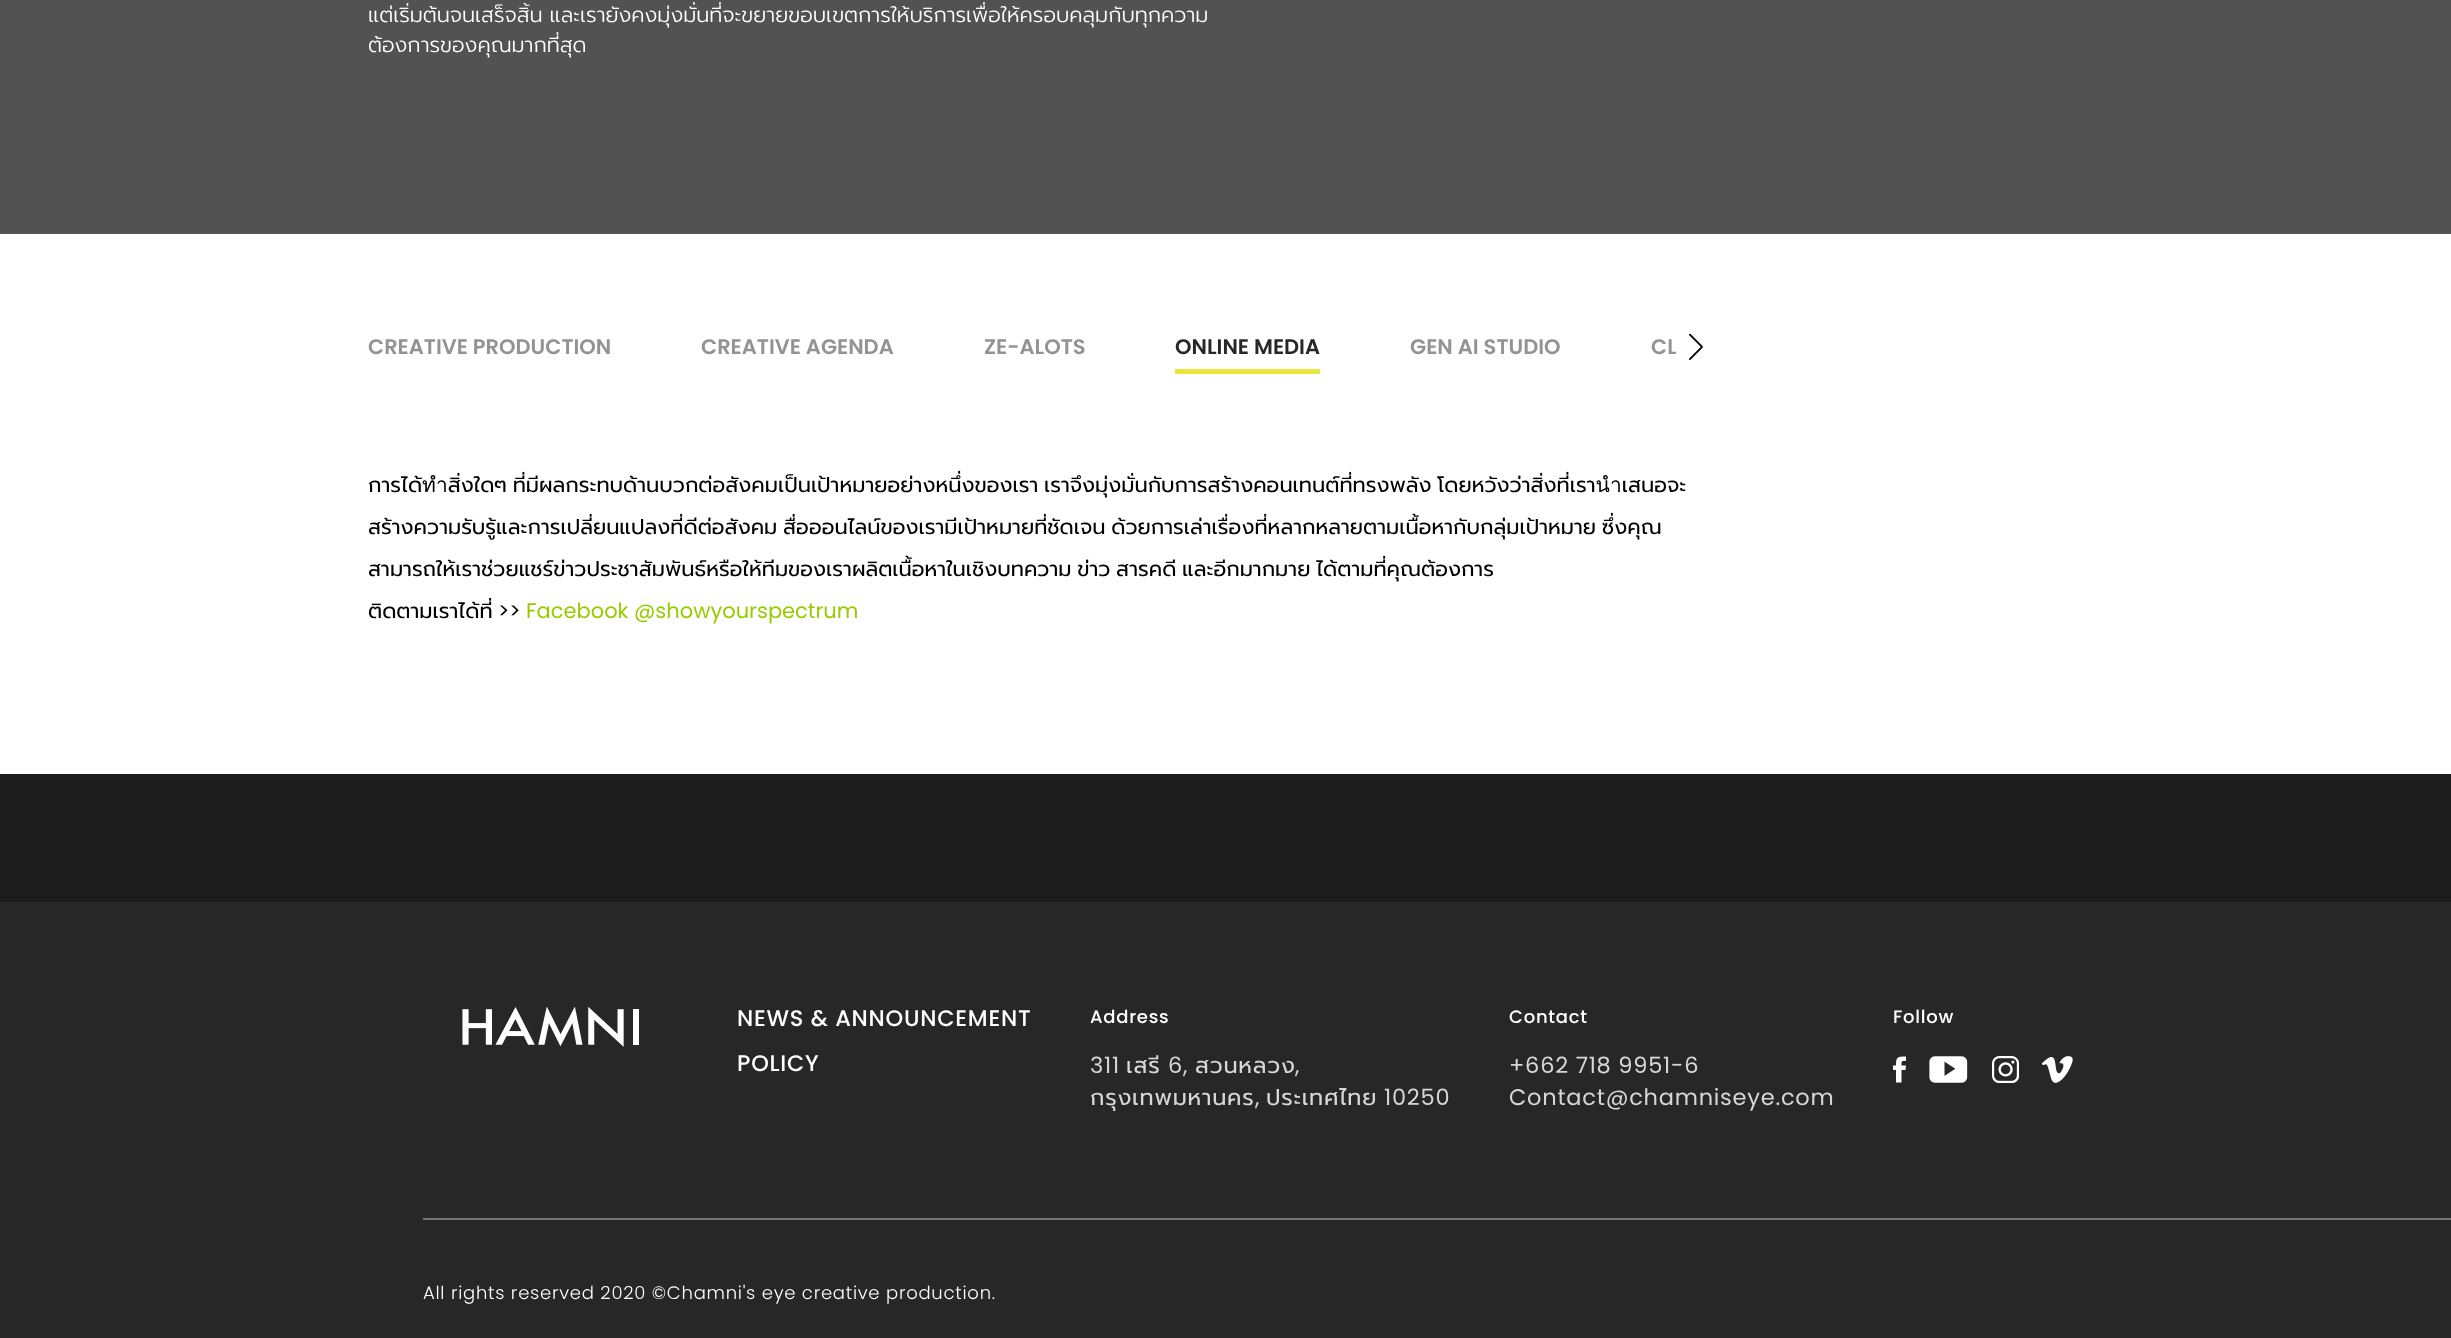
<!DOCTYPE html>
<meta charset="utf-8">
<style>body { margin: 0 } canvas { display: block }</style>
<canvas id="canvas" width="2451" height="1338"></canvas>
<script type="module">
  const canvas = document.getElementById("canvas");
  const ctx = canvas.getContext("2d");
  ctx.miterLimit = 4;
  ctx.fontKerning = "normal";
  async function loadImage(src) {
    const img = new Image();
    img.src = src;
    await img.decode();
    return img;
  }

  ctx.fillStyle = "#ffffff";
  ctx.fillRect(0, 0, 2451, 1338);
  ctx.fillStyle = "#535253";
  ctx.fillRect(0, 0, 2451, 234);
  ctx.wordSpacing = "-1px";
  ctx.font = "300 21px Prompt";
  ctx.fillStyle = "#ffffff";
  ctx.fillText("แต่เริ่มต้นจนเสร็จสิ้น และเรายังคงมุ่งมั่นที่จะขยายขอบเขตการให้บริการเพื่อให้ครอบคลุมกับทุกความ", 368, 22);
  ctx.wordSpacing = "0px";
  ctx.fillText("ต้องการของคุณมากที่สุด", 368, 52);
  ctx.font = "600 21px Poppins";
  ctx.fillStyle = "#949394";
  ctx.fillText("CREATIVE PRODUCTION", 368, 354);
  ctx.fillText("CREATIVE AGENDA", 701, 354);
  ctx.fillText("ZE-ALOTS", 984, 354);
  ctx.fillStyle = "#ece540";
  ctx.fillRect(1175, 369, 145, 5);
  ctx.fillStyle = "#282728";
  ctx.fillText("ONLINE MEDIA", 1175, 354);
  ctx.fillStyle = "#949394";
  ctx.fillText("GEN AI STUDIO", 1410, 354);
  ctx.fillText("CL", 1651, 354);
  ctx.fillStyle = "#ffffff";
  ctx.fillRect(1676, 351, 1, 3);
  ctx.drawImage(await loadImage("img1.png"), 1688, 333, 15, 27);
  ctx.wordSpacing = "-2px";
  ctx.font = "21px Prompt";
  ctx.fillStyle = "#000000";
  ctx.fillText("การได้ทำสิ่งใดๆ ที่มีผลกระทบด้านบวกต่อสังคมเป็นเป้าหมายอย่างหนึ่งของเรา เราจึงมุ่งมั่นกับการสร้างคอนเทนต์ที่ทรงพลัง โดยหวังว่าสิ่งที่เรานำเสนอจะ", 368, 492);
  ctx.fillText("สร้างความรับรู้และการเปลี่ยนแปลงที่ดีต่อสังคม สื่อออนไลน์ของเรามีเป้าหมายที่ชัดเจน ด้วยการเล่าเรื่องที่หลากหลายตามเนื้อหากับกลุ่มเป้าหมาย ซึ่งคุณ", 368, 534);
  ctx.fillText("สามารถให้เราช่วยแชร์ข่าวประชาสัมพันธ์หรือให้ทีมของเราผลิตเนื้อหาในเชิงบทความ ข่าว สารคดี และอีกมากมาย ได้ตามที่คุณต้องการ", 368, 576);
  ctx.wordSpacing = "0px";
  ctx.fillText("ติดตามเราได้ที่", 368, 618);
  ctx.font = "21px Poppins";
  ctx.fillText(">>", 498, 618);
  ctx.fillStyle = "#99cc00";
  ctx.fillText("Facebook @showyourspectrum", 526, 618);
  ctx.fillStyle = "#1d1c1c";
  ctx.fillRect(0, 774, 2451, 128);
  ctx.fillStyle = "#282728";
  ctx.fillRect(0, 902, 2451, 436);
  ctx.drawImage(await loadImage("img2.png"), 462, 1007, 177, 40);
  ctx.letterSpacing = "0.75px";
  ctx.font = "500 22.5px Poppins";
  ctx.fillStyle = "#ffffff";
  ctx.fillText("NEWS & ANNOUNCEMENT", 737, 1026);
  ctx.fillText("POLICY", 737, 1071);
  ctx.font = "500 18px Poppins";
  ctx.fillText("Address", 1090, 1023);
  ctx.font = "22.5px Poppins";
  ctx.fillStyle = "#d7d7d7";
  ctx.fillText("311", 1090, 1073);
  ctx.font = "22.5px Prompt";
  ctx.fillText("เสรี", 1126, 1073);
  ctx.font = "22.5px Poppins";
  ctx.fillText("6,", 1168, 1073);
  ctx.font = "22.5px Prompt";
  ctx.fillText("สวนหลวง", 1195, 1073);
  ctx.font = "22.5px Poppins";
  ctx.fillText(",", 1295, 1073);
  ctx.font = "22.5px Prompt";
  ctx.fillText("กรุงเทพมหานคร", 1090, 1105);
  ctx.font = "22.5px Poppins";
  ctx.fillText(",", 1255, 1105);
  ctx.font = "22.5px Prompt";
  ctx.fillText("ประเทศไทย", 1266, 1105);
  ctx.font = "22.5px Poppins";
  ctx.fillText("10250", 1384, 1105);
  ctx.font = "500 18px Poppins";
  ctx.fillStyle = "#ffffff";
  ctx.fillText("Contact", 1509, 1023);
  ctx.font = "22.5px Poppins";
  ctx.fillStyle = "#d7d7d7";
  ctx.fillText("+662 718 9951-6", 1509, 1073);
  ctx.fillText("Contact@chamniseye.com", 1509, 1105);
  ctx.font = "500 18px Poppins";
  ctx.fillStyle = "#ffffff";
  ctx.fillText("Follow", 1893, 1023);
  ctx.beginPath();
  ctx.moveTo(1905.5, 1070);
  ctx.lineTo(1901.5, 1070);
  ctx.lineTo(1901.5, 1082.5);
  ctx.lineTo(1896, 1082.5);
  ctx.lineTo(1896, 1070);
  ctx.lineTo(1893, 1070);
  ctx.lineTo(1893, 1065.5);
  ctx.lineTo(1896, 1065.5);
  ctx.bezierCurveTo(1896, 1056.5, 1897.5, 1056.5, 1906, 1056.5);
  ctx.lineTo(1906, 1061);
  ctx.bezierCurveTo(1901.5, 1061, 1901.5, 1060.5, 1901.5, 1065.5);
  ctx.lineTo(1906, 1065.5);
  ctx.closePath();
  ctx.fill();
  ctx.drawImage(await loadImage("img3.png"), 1929, 1056, 39, 27);
  ctx.drawImage(await loadImage("img4.png"), 1992, 1056, 27, 27);
  ctx.drawImage(await loadImage("img5.png"), 2042, 1056, 31, 27);
  ctx.fillStyle = "#787778";
  ctx.fillRect(423, 1218, 2028, 2);
  ctx.font = "300 18px Poppins";
  ctx.fillStyle = "#ffffff";
  ctx.fillText("All rights reserved 2020 ©Chamni's eye creative production.", 423, 1299);
</script>
